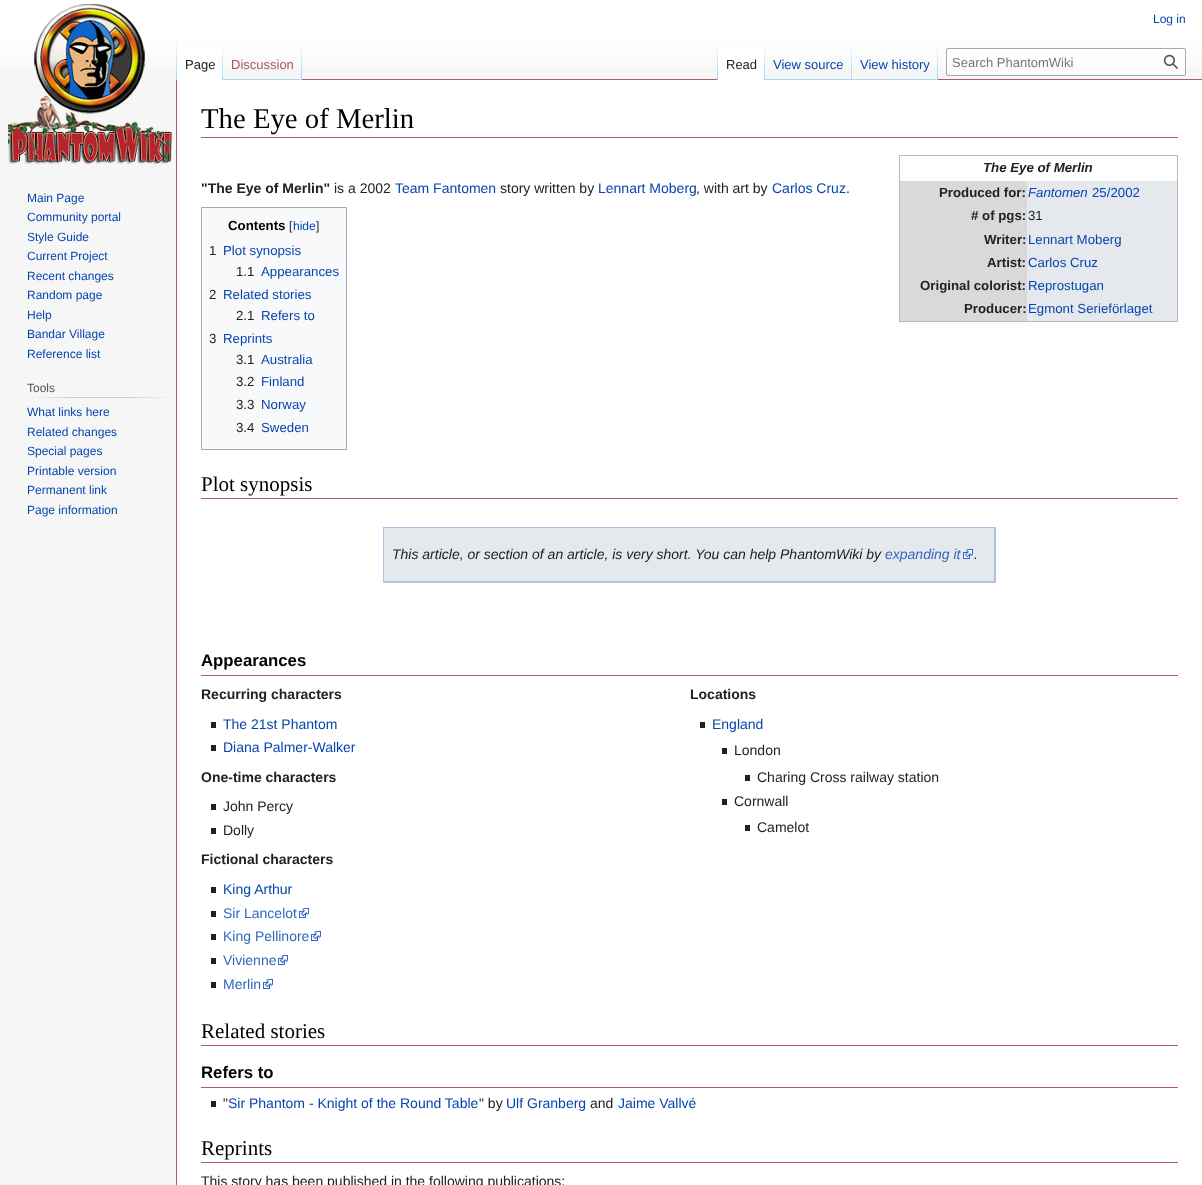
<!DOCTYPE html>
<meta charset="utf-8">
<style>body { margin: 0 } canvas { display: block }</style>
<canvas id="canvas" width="1202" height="1185"></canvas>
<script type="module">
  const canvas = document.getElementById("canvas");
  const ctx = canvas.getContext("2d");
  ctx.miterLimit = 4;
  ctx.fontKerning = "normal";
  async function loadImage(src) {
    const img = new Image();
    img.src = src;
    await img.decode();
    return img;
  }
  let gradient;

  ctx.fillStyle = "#f6f6f6";
  ctx.fillRect(0, 0, 1202, 1185);
  gradient = ctx.createLinearGradient(601, 0, 601, 80);
  gradient.addColorStop(0.5, "#ffffff");
  gradient.addColorStop(1, "#f6f6f6");
  ctx.fillStyle = gradient;
  ctx.fillRect(0, 0, 1202, 69);
  ctx.font = "12px Liberation Sans";
  ctx.fillStyle = "#0645ad";
  ctx.fillText("Log in", 1153, 23);
  ctx.fillStyle = "#b75a5e";
  ctx.fillRect(176, 79, 1, 1106);
  gradient = ctx.createLinearGradient(177, 40, 177, 80);
  gradient.addColorStop(0, "rgba(167, 215, 249, 0)");
  gradient.addColorStop(1, "#a7d7f9");
  ctx.fillStyle = gradient;
  ctx.fillRect(176, 40, 1, 40);
  ctx.fillStyle = "#ffffff";
  ctx.fillRect(177, 51, 45, 29);
  gradient = ctx.createLinearGradient(223, 40, 223, 80);
  gradient.addColorStop(0, "#ffffff");
  gradient.addColorStop(1, "#a7d7f9");
  ctx.fillStyle = gradient;
  ctx.fillRect(222, 40, 1, 40);
  ctx.font = "13px Liberation Sans";
  ctx.fillStyle = "#202122";
  ctx.fillText("Page", 185, 69);
  gradient = ctx.createLinearGradient(263, 80, 263, 40);
  gradient.addColorStop(0, "#77c1f6");
  gradient.addColorStop(0.03, "#f6f6f6");
  gradient.addColorStop(1, "#ffffff");
  ctx.fillStyle = gradient;
  ctx.fillRect(223, 79, 79, 1);
  gradient = ctx.createLinearGradient(302, 40, 302, 80);
  gradient.addColorStop(0, "rgba(167, 215, 249, 0)");
  gradient.addColorStop(1, "#a7d7f9");
  ctx.fillStyle = gradient;
  ctx.fillRect(301, 40, 1, 40);
  ctx.fillStyle = "#a55858";
  ctx.fillText("Discussion", 231, 69);
  ctx.fillStyle = "#b75a5e";
  ctx.fillRect(302, 79, 900, 1);
  gradient = ctx.createLinearGradient(718, 40, 718, 80);
  gradient.addColorStop(0, "rgba(167, 215, 249, 0)");
  gradient.addColorStop(1, "#a7d7f9");
  ctx.fillStyle = gradient;
  ctx.fillRect(717, 40, 1, 40);
  ctx.fillStyle = "#ffffff";
  ctx.fillRect(718, 51, 46, 29);
  gradient = ctx.createLinearGradient(765, 40, 765, 80);
  gradient.addColorStop(0, "#ffffff");
  gradient.addColorStop(1, "#a7d7f9");
  ctx.fillStyle = gradient;
  ctx.fillRect(764, 40, 1, 40);
  ctx.fillStyle = "#202122";
  ctx.fillText("Read", 726, 69);
  gradient = ctx.createLinearGradient(809, 80, 809, 40);
  gradient.addColorStop(0, "#77c1f6");
  gradient.addColorStop(0.03, "#f6f6f6");
  gradient.addColorStop(1, "#ffffff");
  ctx.fillStyle = gradient;
  ctx.fillRect(765, 79, 87, 1);
  gradient = ctx.createLinearGradient(852, 40, 852, 80);
  gradient.addColorStop(0, "rgba(167, 215, 249, 0)");
  gradient.addColorStop(1, "#a7d7f9");
  ctx.fillStyle = gradient;
  ctx.fillRect(851, 40, 1, 40);
  ctx.fillStyle = "#0645ad";
  ctx.fillText("View source", 773, 69);
  gradient = ctx.createLinearGradient(895, 80, 895, 40);
  gradient.addColorStop(0, "#77c1f6");
  gradient.addColorStop(0.03, "#f6f6f6");
  gradient.addColorStop(1, "#ffffff");
  ctx.fillStyle = gradient;
  ctx.fillRect(852, 79, 86, 1);
  gradient = ctx.createLinearGradient(938, 40, 938, 80);
  gradient.addColorStop(0, "rgba(167, 215, 249, 0)");
  gradient.addColorStop(1, "#a7d7f9");
  ctx.fillStyle = gradient;
  ctx.fillRect(937, 40, 1, 40);
  ctx.fillStyle = "#0645ad";
  ctx.fillText("View history", 860, 69);
  ctx.fillStyle = "rgba(255, 255, 255, 0.5)";
  ctx.beginPath();
  ctx.roundRect(946.5, 48.5, 239, 27, 1.5);
  ctx.fill();
  ctx.strokeStyle = "#a2a9b1";
  ctx.stroke();
  ctx.fillStyle = "#72777d";
  ctx.fillText("Search PhantomWiki", 952, 67);
  ctx.drawImage(await loadImage("img1.png"), 1163, 54, 15, 15);
  ctx.drawImage(await loadImage("img2.png"), 8, 4, 165, 160);
  ctx.font = "12px Liberation Sans";
  ctx.fillStyle = "#0645ad";
  ctx.fillText("Main Page", 27, 202);
  ctx.fillText("Community portal", 27, 221);
  ctx.fillText("Style Guide", 27, 241);
  ctx.fillText("Current Project", 27, 260);
  ctx.fillText("Recent changes", 27, 280);
  ctx.fillText("Random page", 27, 299);
  ctx.fillText("Help", 27, 319);
  ctx.fillText("Bandar Village", 27, 338);
  ctx.fillText("Reference list", 27, 358);
  gradient = ctx.createLinearGradient(27, 398, 174, 398);
  gradient.addColorStop(0, "#f6f6f6");
  gradient.addColorStop(0.33, "#c8ccd1");
  gradient.addColorStop(0.66, "#c8ccd1");
  gradient.addColorStop(1, "#f6f6f6");
  ctx.fillStyle = gradient;
  ctx.fillRect(27, 397, 147, 1);
  ctx.fillStyle = "#54595d";
  ctx.fillText("Tools", 27, 392);
  ctx.fillStyle = "#0645ad";
  ctx.fillText("What links here", 27, 416);
  ctx.fillText("Related changes", 27, 436);
  ctx.fillText("Special pages", 27, 455);
  ctx.fillText("Printable version", 27, 475);
  ctx.fillText("Permanent link", 27, 494);
  ctx.fillText("Page information", 27, 514);
  ctx.fillStyle = "#ffffff";
  ctx.fillRect(177, 80, 1025, 1105);
  ctx.fillStyle = "#b75a5e";
  ctx.fillRect(201, 137, 977, 1);
  ctx.font = "28.75px Liberation Serif";
  ctx.fillStyle = "#000000";
  ctx.fillText("The Eye of Merlin", 201, 128);
  ctx.font = "bold 14px Liberation Sans";
  ctx.fillStyle = "#202122";
  ctx.fillText("\"The Eye of Merlin\"", 201, 193);
  ctx.font = "14px Liberation Sans";
  ctx.fillText("is a 2002", 334, 193);
  ctx.fillStyle = "#0645ad";
  ctx.fillText("Team Fantomen", 395, 193);
  ctx.fillStyle = "#202122";
  ctx.fillText("story written by", 500, 193);
  ctx.fillStyle = "#0645ad";
  ctx.fillText("Lennart Moberg", 598, 193);
  ctx.fillStyle = "#202122";
  ctx.fillText(", with art by", 696, 193);
  ctx.fillStyle = "#0645ad";
  ctx.fillText("Carlos Cruz", 772, 193);
  ctx.fillStyle = "#202122";
  ctx.fillText(".", 846, 193);
  ctx.fillStyle = "#b9b9b9";
  ctx.fillRect(899, 155, 279, 1);
  ctx.fillRect(1177, 155, 1, 167);
  ctx.fillRect(899, 321, 279, 1);
  ctx.fillRect(899, 155, 1, 167);
  ctx.font = "italic bold 13.25px Liberation Sans";
  ctx.fillStyle = "#202122";
  ctx.fillText("The Eye of Merlin", 983, 172);
  ctx.fillStyle = "#d9d9d9";
  ctx.fillRect(900, 181, 127, 140);
  ctx.font = "bold 13.25px Liberation Sans";
  ctx.fillStyle = "#202122";
  ctx.fillText("Produced for:", 939, 197);
  ctx.fillStyle = "#e5e9ee";
  ctx.fillRect(1027, 181, 150, 140);
  ctx.font = "italic 13.25px Liberation Sans";
  ctx.fillStyle = "#0645ad";
  ctx.fillText("Fantomen", 1028, 197);
  ctx.font = "13.25px Liberation Sans";
  ctx.fillText("25/2002", 1092, 197);
  ctx.font = "bold 13.25px Liberation Sans";
  ctx.fillStyle = "#202122";
  ctx.fillText("# of pgs:", 971, 220);
  ctx.font = "13.25px Liberation Sans";
  ctx.fillText("31", 1028, 220);
  ctx.font = "bold 13.25px Liberation Sans";
  ctx.fillText("Writer:", 984, 244);
  ctx.font = "13.25px Liberation Sans";
  ctx.fillStyle = "#0645ad";
  ctx.fillText("Lennart Moberg", 1028, 244);
  ctx.font = "bold 13.25px Liberation Sans";
  ctx.fillStyle = "#202122";
  ctx.fillText("Artist:", 987, 267);
  ctx.font = "13.25px Liberation Sans";
  ctx.fillStyle = "#0645ad";
  ctx.fillText("Carlos Cruz", 1028, 267);
  ctx.font = "bold 13.25px Liberation Sans";
  ctx.fillStyle = "#202122";
  ctx.fillText("Original colorist:", 920, 290);
  ctx.font = "13.25px Liberation Sans";
  ctx.fillStyle = "#0645ad";
  ctx.fillText("Reprostugan", 1028, 290);
  ctx.font = "bold 13.25px Liberation Sans";
  ctx.fillStyle = "#202122";
  ctx.fillText("Producer:", 964, 313);
  ctx.font = "13.25px Liberation Sans";
  ctx.fillStyle = "#0645ad";
  ctx.fillText("Egmont Serieförlaget", 1028, 313);
  ctx.fillStyle = "#f8f9fa";
  ctx.beginPath();
  ctx.rect(201.5, 207.5, 145, 242);
  ctx.fill();
  ctx.stroke();
  ctx.font = "bold 13.25px Liberation Sans";
  ctx.fillStyle = "#000000";
  ctx.fillText("Contents", 228, 230);
  ctx.font = "12px Liberation Sans";
  ctx.fillStyle = "#202122";
  ctx.fillText("[", 289, 230);
  ctx.fillStyle = "#0645ad";
  ctx.fillText("hide", 293, 230);
  ctx.fillStyle = "#202122";
  ctx.fillText("]", 316, 230);
  ctx.font = "13.25px Liberation Sans";
  ctx.fillText("1", 209, 255);
  ctx.fillStyle = "#0645ad";
  ctx.fillText("Plot synopsis", 223, 255);
  ctx.fillStyle = "#202122";
  ctx.fillText("1.1", 236, 276);
  ctx.fillStyle = "#0645ad";
  ctx.fillText("Appearances", 261, 276);
  ctx.fillStyle = "#202122";
  ctx.fillText("2", 209, 299);
  ctx.fillStyle = "#0645ad";
  ctx.fillText("Related stories", 223, 299);
  ctx.fillStyle = "#202122";
  ctx.fillText("2.1", 236, 320);
  ctx.fillStyle = "#0645ad";
  ctx.fillText("Refers to", 261, 320);
  ctx.fillStyle = "#202122";
  ctx.fillText("3", 209, 343);
  ctx.fillStyle = "#0645ad";
  ctx.fillText("Reprints", 223, 343);
  ctx.fillStyle = "#202122";
  ctx.fillText("3.1", 236, 364);
  ctx.fillStyle = "#0645ad";
  ctx.fillText("Australia", 261, 364);
  ctx.fillStyle = "#202122";
  ctx.fillText("3.2", 236, 386);
  ctx.fillStyle = "#0645ad";
  ctx.fillText("Finland", 261, 386);
  ctx.fillStyle = "#202122";
  ctx.fillText("3.3", 236, 409);
  ctx.fillStyle = "#0645ad";
  ctx.fillText("Norway", 261, 409);
  ctx.fillStyle = "#202122";
  ctx.fillText("3.4", 236, 432);
  ctx.fillStyle = "#0645ad";
  ctx.fillText("Sweden", 261, 432);
  ctx.fillStyle = "#b75a5e";
  ctx.fillRect(201, 498, 977, 1);
  ctx.font = "21px Liberation Serif";
  ctx.fillStyle = "#000000";
  ctx.fillText("Plot synopsis", 201, 491);
  ctx.fillStyle = "#e5e9ee";
  ctx.fillRect(384, 528, 610, 53);
  ctx.fillStyle = "#acc6e1";
  ctx.fillRect(383, 527, 613, 1);
  ctx.fillRect(994, 527, 2, 56);
  ctx.fillRect(383, 581, 613, 2);
  ctx.fillRect(383, 527, 1, 56);
  ctx.font = "italic 14px Liberation Sans";
  ctx.fillStyle = "#202122";
  ctx.fillText("This article, or section of an article, is very short. You can help PhantomWiki by", 392, 559);
  ctx.fillStyle = "#3366bb";
  ctx.fillText("expanding it", 885, 559);
  ctx.drawImage(await loadImage("img3.png"), 963, 549, 10, 10);
  ctx.fillStyle = "#202122";
  ctx.fillText(".", 974, 559);
  ctx.fillStyle = "#b75a5e";
  ctx.fillRect(201, 675, 977, 1);
  ctx.font = "bold 16.75px Liberation Sans";
  ctx.fillStyle = "#000000";
  ctx.fillText("Appearances", 201, 666);
  ctx.font = "bold 14px Liberation Sans";
  ctx.fillStyle = "#202122";
  ctx.fillText("Recurring characters", 201, 699);
  ctx.fillRect(211, 722, 5, 6);
  ctx.font = "14px Liberation Sans";
  ctx.fillStyle = "#0645ad";
  ctx.fillText("The 21st Phantom", 223, 729);
  ctx.fillStyle = "#202122";
  ctx.fillRect(211, 745, 5, 6);
  ctx.fillStyle = "#0645ad";
  ctx.fillText("Diana Palmer-Walker", 223, 752);
  ctx.font = "bold 14px Liberation Sans";
  ctx.fillStyle = "#202122";
  ctx.fillText("One-time characters", 201, 782);
  ctx.fillRect(211, 804, 5, 6);
  ctx.font = "14px Liberation Sans";
  ctx.fillText("John Percy", 223, 811);
  ctx.fillRect(211, 828, 5, 6);
  ctx.fillText("Dolly", 223, 835);
  ctx.font = "bold 14px Liberation Sans";
  ctx.fillText("Fictional characters", 201, 864);
  ctx.fillRect(211, 887, 5, 6);
  ctx.font = "14px Liberation Sans";
  ctx.fillStyle = "#0645ad";
  ctx.fillText("King Arthur", 223, 894);
  ctx.fillStyle = "#202122";
  ctx.fillRect(211, 911, 5, 6);
  ctx.fillStyle = "#3366bb";
  ctx.fillText("Sir Lancelot", 223, 918);
  ctx.drawImage(await loadImage("img4.png"), 299, 908, 10, 10);
  ctx.fillStyle = "#202122";
  ctx.fillRect(211, 934, 5, 6);
  ctx.fillStyle = "#3366bb";
  ctx.fillText("King Pellinore", 223, 941);
  ctx.drawImage(await loadImage("img4.png"), 311, 931, 10, 10);
  ctx.fillStyle = "#202122";
  ctx.fillRect(211, 958, 5, 6);
  ctx.fillStyle = "#3366bb";
  ctx.fillText("Vivienne", 223, 965);
  ctx.drawImage(await loadImage("img4.png"), 278, 955, 10, 10);
  ctx.fillStyle = "#202122";
  ctx.fillRect(211, 982, 5, 6);
  ctx.fillStyle = "#3366bb";
  ctx.fillText("Merlin", 223, 989);
  ctx.drawImage(await loadImage("img4.png"), 263, 979, 10, 10);
  ctx.font = "bold 14px Liberation Sans";
  ctx.fillStyle = "#202122";
  ctx.fillText("Locations", 690, 699);
  ctx.fillRect(700, 722, 5, 6);
  ctx.font = "14px Liberation Sans";
  ctx.fillStyle = "#0645ad";
  ctx.fillText("England", 712, 729);
  ctx.fillStyle = "#202122";
  ctx.fillRect(722, 748, 5, 6);
  ctx.fillText("London", 734, 755);
  ctx.fillRect(745, 775, 5, 6);
  ctx.fillText("Charing Cross railway station", 757, 782);
  ctx.fillRect(722, 799, 5, 6);
  ctx.fillText("Cornwall", 734, 806);
  ctx.fillRect(745, 825, 5, 6);
  ctx.fillText("Camelot", 757, 832);
  ctx.fillStyle = "#b75a5e";
  ctx.fillRect(201, 1045, 977, 1);
  ctx.font = "21px Liberation Serif";
  ctx.fillStyle = "#000000";
  ctx.fillText("Related stories", 201, 1038);
  ctx.fillStyle = "#b75a5e";
  ctx.fillRect(201, 1087, 977, 1);
  ctx.font = "bold 16.75px Liberation Sans";
  ctx.fillStyle = "#000000";
  ctx.fillText("Refers to", 201, 1078);
  ctx.fillStyle = "#202122";
  ctx.fillRect(211, 1101, 5, 6);
  ctx.font = "14px Liberation Sans";
  ctx.fillText("\"", 223, 1108);
  ctx.fillStyle = "#0645ad";
  ctx.fillText("Sir Phantom - Knight of the Round Table", 228, 1108);
  ctx.fillStyle = "#202122";
  ctx.fillText("\" by", 479, 1108);
  ctx.fillStyle = "#0645ad";
  ctx.fillText("Ulf Granberg", 506, 1108);
  ctx.fillStyle = "#202122";
  ctx.fillText("and", 590, 1108);
  ctx.fillStyle = "#0645ad";
  ctx.fillText("Jaime Vallvé", 618, 1108);
  ctx.fillStyle = "#b75a5e";
  ctx.fillRect(201, 1162, 977, 1);
  ctx.font = "21px Liberation Serif";
  ctx.fillStyle = "#000000";
  ctx.fillText("Reprints", 201, 1155);
  ctx.font = "14px Liberation Sans";
  ctx.fillStyle = "#202122";
  ctx.fillText("This story has been published in the following publications:", 201, 1186);
</script>
